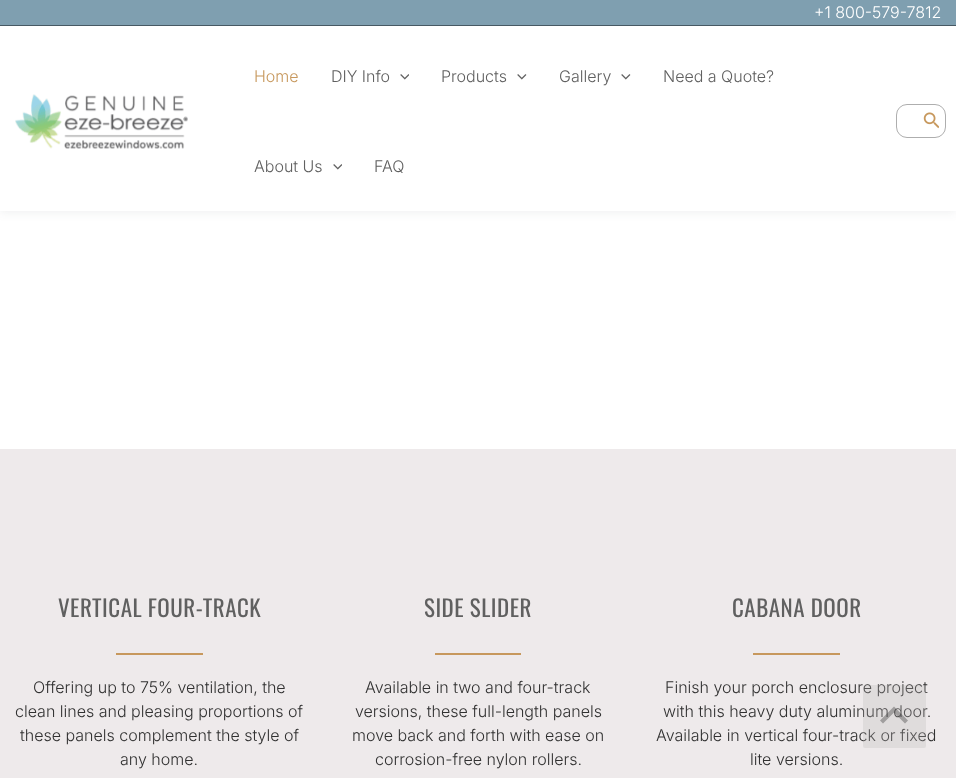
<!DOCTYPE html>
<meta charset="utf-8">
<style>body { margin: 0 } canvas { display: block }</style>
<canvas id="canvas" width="956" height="778"></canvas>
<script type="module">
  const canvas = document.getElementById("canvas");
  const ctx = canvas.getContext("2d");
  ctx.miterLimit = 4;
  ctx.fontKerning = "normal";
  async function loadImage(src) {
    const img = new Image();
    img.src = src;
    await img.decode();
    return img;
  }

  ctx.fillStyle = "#ffffff";
  ctx.fillRect(0, 0, 956, 778);
  ctx.fillStyle = "rgba(36, 50, 66, 0.07)";
  ctx.filter = "blur(5px)";
  ctx.beginPath();
  ctx.rect(0, 28, 956, 185);
  ctx.fill();
  ctx.filter = "none";
  ctx.fillStyle = "#7f9fb0";
  ctx.fillRect(0, 0, 956, 25);
  ctx.fillStyle = "#475963";
  ctx.fillRect(0, 25, 956, 1);
  ctx.font = "300 16px Inter";
  ctx.fillStyle = "#ffffff";
  ctx.fillText("+1 800-579-7812", 814, 18);
  ctx.fillRect(0, 26, 956, 185);
  ctx.drawImage(await loadImage("img1.png"), 15, 94, 173, 55);
  ctx.fillStyle = "#c7985d";
  ctx.fillText("Home", 254, 82);
  ctx.fillStyle = "#606060";
  ctx.fillText("DIY Info", 331, 82);
  ctx.drawImage(await loadImage("img2.png"), 400, 74, 9, 6);
  ctx.fillText("Products", 441, 82);
  ctx.drawImage(await loadImage("img3.png"), 517, 74, 10, 6);
  ctx.fillText("Gallery", 559, 82);
  ctx.drawImage(await loadImage("img3.png"), 621, 74, 10, 6);
  ctx.fillText("Need a Quote?", 663, 82);
  ctx.fillText("About Us", 254, 172);
  ctx.drawImage(await loadImage("img2.png"), 333, 164, 9, 6);
  ctx.fillText("FAQ", 374, 172);
  ctx.beginPath();
  ctx.roundRect(896.5, 104.5, 49, 33, 10.5);
  ctx.strokeStyle = "#aeaeae";
  ctx.stroke();
  ctx.drawImage(await loadImage("img4.png"), 923, 112, 16, 17);
  ctx.fillStyle = "#eeeaeb";
  ctx.fillRect(0, 449, 956, 329);
  ctx.letterSpacing = "0.5px";
  ctx.font = "23px Oswald";
  ctx.fillStyle = "#606060";
  ctx.fillText("VERTICAL FOUR-TRACK", 58, 617);
  ctx.fillStyle = "#c7985d";
  ctx.fillRect(116, 653, 87, 2);
  ctx.letterSpacing = "0px";
  ctx.font = "300 16px Inter";
  ctx.fillStyle = "#313131";
  ctx.fillText("Offering up to 75% ventilation, the", 33, 693);
  ctx.fillText("clean lines and pleasing proportions of", 15, 717);
  ctx.fillText("these panels complement the style of", 20, 741);
  ctx.fillText("any home.", 120, 765);
  ctx.letterSpacing = "0.5px";
  ctx.font = "23px Oswald";
  ctx.fillStyle = "#606060";
  ctx.fillText("SIDE SLIDER", 424, 617);
  ctx.fillStyle = "#c7985d";
  ctx.fillRect(435, 653, 86, 2);
  ctx.letterSpacing = "0px";
  ctx.font = "300 16px Inter";
  ctx.fillStyle = "#313131";
  ctx.fillText("Available in two and four-track", 365, 693);
  ctx.fillText("versions, these full-length panels", 355, 717);
  ctx.fillText("move back and forth with ease on", 352, 741);
  ctx.fillText("corrosion-free nylon rollers.", 375, 765);
  ctx.letterSpacing = "0.5px";
  ctx.font = "23px Oswald";
  ctx.fillStyle = "#606060";
  ctx.fillText("CABANA DOOR", 732, 617);
  ctx.fillStyle = "#c7985d";
  ctx.fillRect(753, 653, 87, 2);
  ctx.letterSpacing = "0px";
  ctx.font = "300 16px Inter";
  ctx.fillStyle = "#313131";
  ctx.fillText("Finish your porch enclosure project", 665, 693);
  ctx.fillText("with this heavy duty aluminum door.", 663, 717);
  ctx.fillText("Available in vertical four-track or fixed", 656, 741);
  ctx.fillText("lite versions.", 750, 765);
  ctx.fillStyle = "rgba(186, 182, 183, 0.28)";
  ctx.beginPath();
  ctx.roundRect(863, 685, 63, 63, 2);
  ctx.fill();
  ctx.fillStyle = "rgba(66, 66, 66, 0.4)";
  ctx.beginPath();
  ctx.moveTo(908, 720.5);
  ctx.lineTo(894, 706.5);
  ctx.lineTo(880, 720.5);
  ctx.lineTo(883, 723.5);
  ctx.lineTo(894, 712.5);
  ctx.lineTo(905, 723.5);
  ctx.closePath();
  ctx.fill();
</script>
